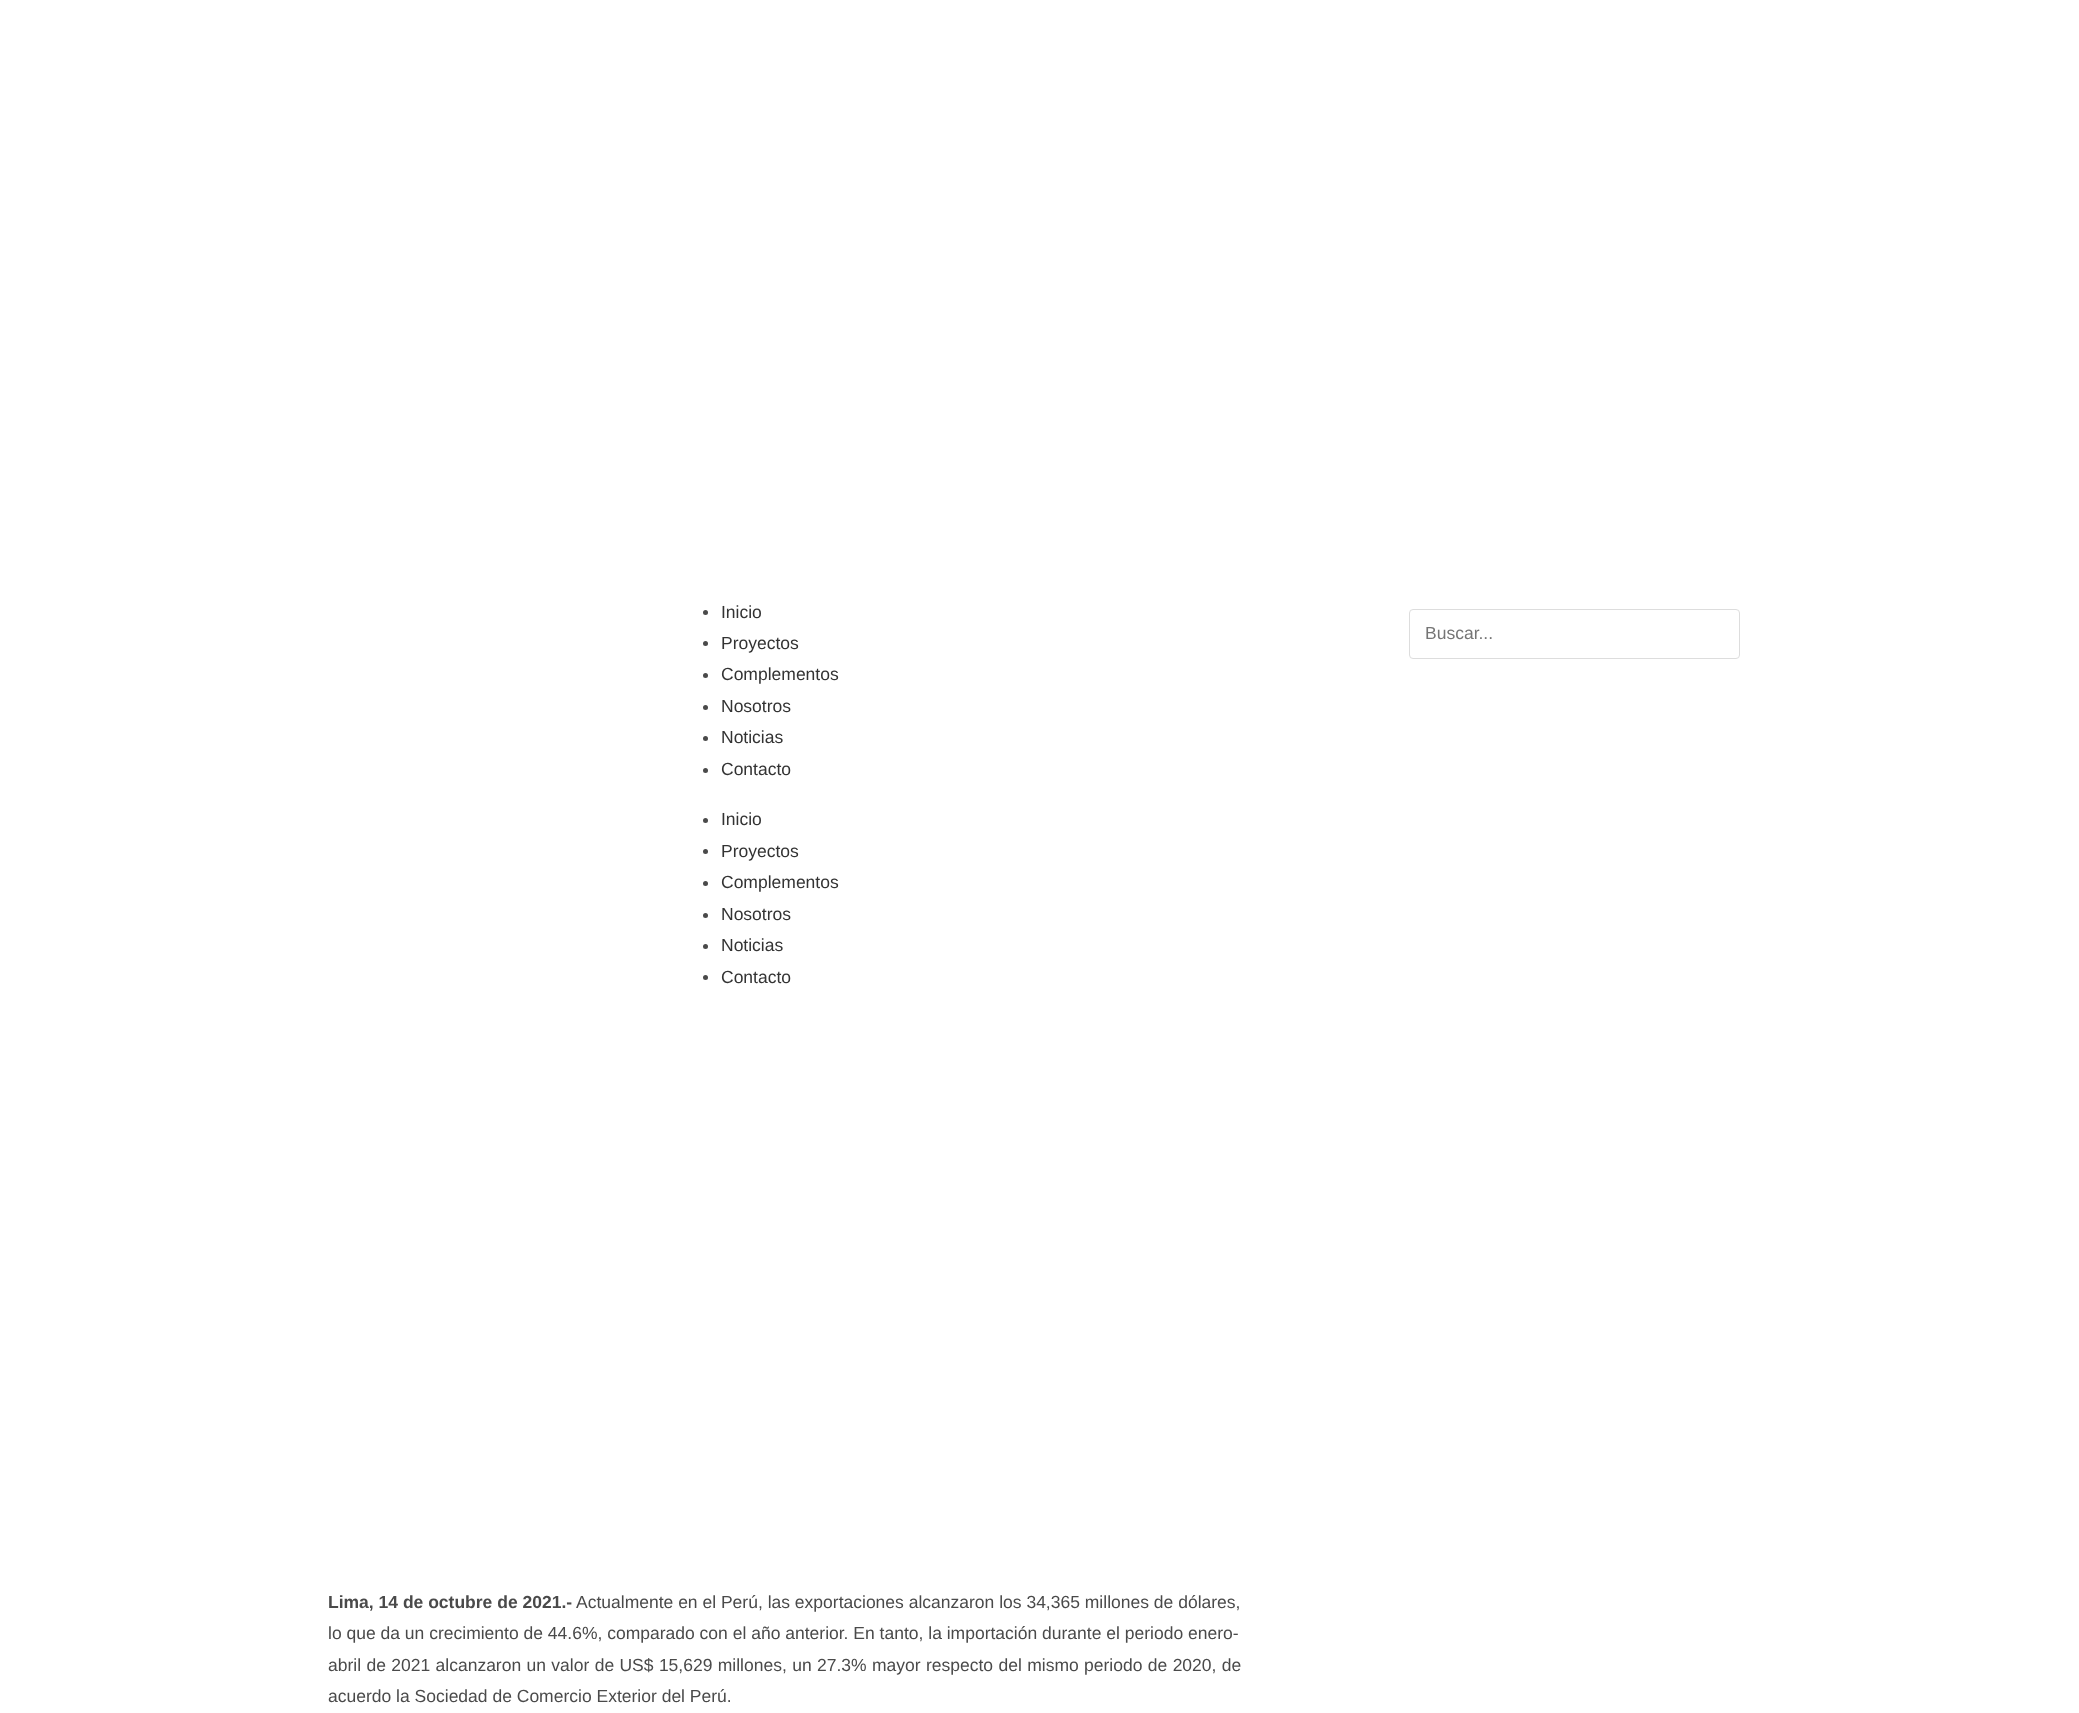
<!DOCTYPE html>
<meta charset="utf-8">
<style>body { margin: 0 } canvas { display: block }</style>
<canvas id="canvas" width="2079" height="1713"></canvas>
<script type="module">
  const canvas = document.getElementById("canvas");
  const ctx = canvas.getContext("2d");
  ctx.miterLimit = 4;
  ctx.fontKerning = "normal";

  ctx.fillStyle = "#ffffff";
  ctx.fillRect(0, 0, 2079, 1713);
  ctx.fillStyle = "#4a4a4a";
  ctx.beginPath();
  ctx.arc(705.5, 612.5, 2.5, 0, Math.PI * 2);
  ctx.fill();
  ctx.font = "17.5px Liberation Sans";
  ctx.fillStyle = "#333333";
  ctx.fillText("Inicio", 721, 618);
  ctx.fillStyle = "#4a4a4a";
  ctx.beginPath();
  ctx.arc(705.5, 643.5, 2.5, 0, Math.PI * 2);
  ctx.fill();
  ctx.fillStyle = "#333333";
  ctx.fillText("Proyectos", 721, 649);
  ctx.fillStyle = "#4a4a4a";
  ctx.beginPath();
  ctx.arc(705.5, 675.5, 2.5, 0, Math.PI * 2);
  ctx.fill();
  ctx.fillStyle = "#333333";
  ctx.fillText("Complementos", 721, 680);
  ctx.fillStyle = "#4a4a4a";
  ctx.beginPath();
  ctx.arc(705.5, 707.5, 2.5, 0, Math.PI * 2);
  ctx.fill();
  ctx.fillStyle = "#333333";
  ctx.fillText("Nosotros", 721, 712);
  ctx.fillStyle = "#4a4a4a";
  ctx.beginPath();
  ctx.arc(705.5, 738.5, 2.5, 0, Math.PI * 2);
  ctx.fill();
  ctx.fillStyle = "#333333";
  ctx.fillText("Noticias", 721, 743);
  ctx.fillStyle = "#4a4a4a";
  ctx.beginPath();
  ctx.arc(705.5, 770.5, 2.5, 0, Math.PI * 2);
  ctx.fill();
  ctx.fillStyle = "#333333";
  ctx.fillText("Contacto", 721, 775);
  ctx.fillStyle = "#4a4a4a";
  ctx.beginPath();
  ctx.arc(705.5, 820.5, 2.5, 0, Math.PI * 2);
  ctx.fill();
  ctx.fillStyle = "#333333";
  ctx.fillText("Inicio", 721, 825);
  ctx.fillStyle = "#4a4a4a";
  ctx.beginPath();
  ctx.arc(705.5, 851.5, 2.5, 0, Math.PI * 2);
  ctx.fill();
  ctx.fillStyle = "#333333";
  ctx.fillText("Proyectos", 721, 857);
  ctx.fillStyle = "#4a4a4a";
  ctx.beginPath();
  ctx.arc(705.5, 883.5, 2.5, 0, Math.PI * 2);
  ctx.fill();
  ctx.fillStyle = "#333333";
  ctx.fillText("Complementos", 721, 888);
  ctx.fillStyle = "#4a4a4a";
  ctx.beginPath();
  ctx.arc(705.5, 915.5, 2.5, 0, Math.PI * 2);
  ctx.fill();
  ctx.fillStyle = "#333333";
  ctx.fillText("Nosotros", 721, 920);
  ctx.fillStyle = "#4a4a4a";
  ctx.beginPath();
  ctx.arc(705.5, 946.5, 2.5, 0, Math.PI * 2);
  ctx.fill();
  ctx.fillStyle = "#333333";
  ctx.fillText("Noticias", 721, 951);
  ctx.fillStyle = "#4a4a4a";
  ctx.beginPath();
  ctx.arc(705.5, 977.5, 2.5, 0, Math.PI * 2);
  ctx.fill();
  ctx.fillStyle = "#333333";
  ctx.fillText("Contacto", 721, 983);
  ctx.beginPath();
  ctx.roundRect(1409.5, 609.5, 330, 49, 3.5);
  ctx.strokeStyle = "#dddddd";
  ctx.stroke();
  ctx.fillStyle = "#757575";
  ctx.fillText("Buscar...", 1425, 639);
  ctx.font = "bold 17.5px Liberation Sans";
  ctx.fillStyle = "#4a4a4a";
  ctx.fillText("Lima, 14 de octubre de 2021.-", 328, 1608);
  ctx.font = "17.5px Liberation Sans";
  ctx.fillText("Actualmente en el Perú, las exportaciones alcanzaron los 34,365 millones de dólares,", 576, 1608);
  ctx.fillText("lo que da un crecimiento de 44.6%, comparado con el año anterior. En tanto, la importación durante el periodo enero-", 328, 1639);
  ctx.wordSpacing = "0.5px";
  ctx.fillText("abril de 2021 alcanzaron un valor de US$ 15,629 millones, un 27.3% mayor respecto del mismo periodo de 2020, de", 328, 1671);
  ctx.wordSpacing = "0px";
  ctx.fillText("acuerdo la Sociedad de Comercio Exterior del Perú.", 328, 1702);
</script>
